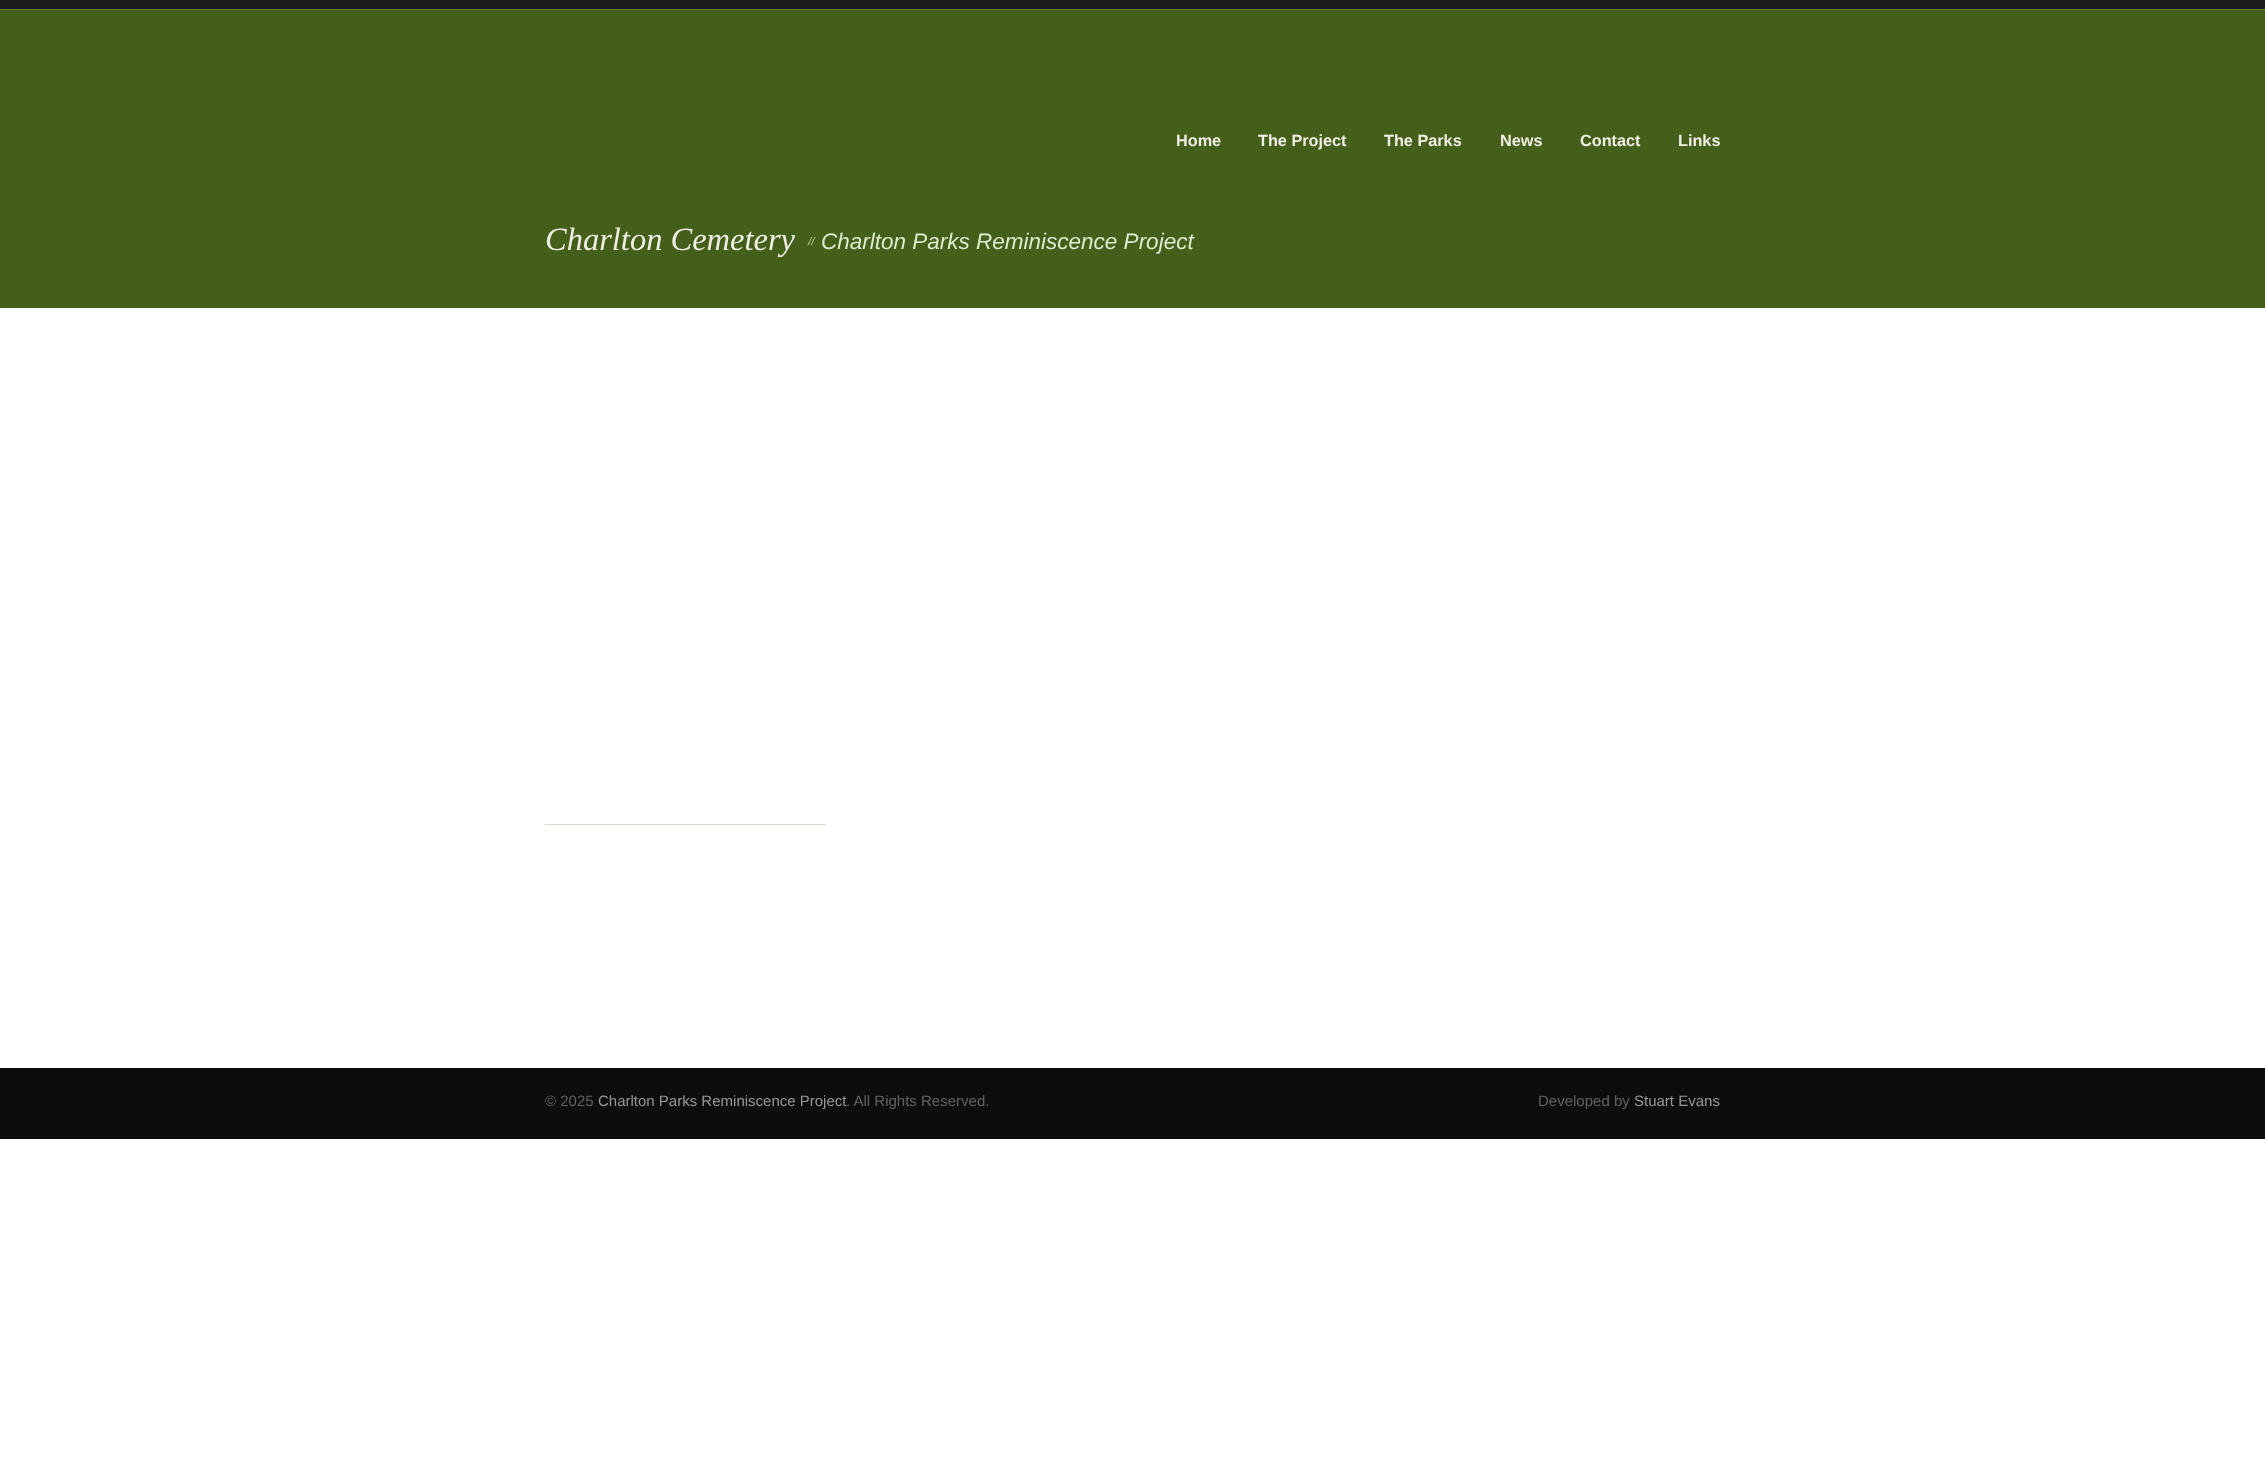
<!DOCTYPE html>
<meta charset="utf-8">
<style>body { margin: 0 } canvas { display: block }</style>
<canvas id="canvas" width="2265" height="1465"></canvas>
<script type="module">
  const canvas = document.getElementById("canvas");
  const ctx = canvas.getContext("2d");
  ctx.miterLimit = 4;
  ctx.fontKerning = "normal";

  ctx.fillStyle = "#ffffff";
  ctx.fillRect(0, 0, 2265, 1465);
  ctx.fillStyle = "#1c1c1c";
  ctx.fillRect(0, 0, 2265, 9);
  ctx.fillStyle = "#435f1a";
  ctx.fillRect(0, 10, 2265, 298);
  ctx.fillStyle = "#5e812b";
  ctx.fillRect(0, 9, 2265, 1);
  ctx.font = "bold 16.25px Liberation Sans";
  ctx.fillStyle = "#f1eee5";
  ctx.fillText("Home", 1176, 146);
  ctx.fillText("The Project", 1258, 146);
  ctx.fillText("The Parks", 1384, 146);
  ctx.fillText("News", 1500, 146);
  ctx.fillText("Contact", 1580, 146);
  ctx.fillText("Links", 1678, 146);
  ctx.font = "italic 32.5px Liberation Serif";
  ctx.fillText("Charlton Cemetery", 545, 250);
  ctx.font = "italic 12px Liberation Serif";
  ctx.fillStyle = "#deebce";
  ctx.fillText("//", 808, 245);
  ctx.font = "italic 22.5px Liberation Sans";
  ctx.fillText("Charlton Parks Reminiscence Project", 821, 249);
  ctx.fillStyle = "#dbd7cc";
  ctx.fillRect(545, 824, 281, 1);
  ctx.fillStyle = "#0d0d0d";
  ctx.fillRect(0, 1068, 2265, 71);
  ctx.font = "15px Liberation Sans";
  ctx.fillStyle = "#626262";
  ctx.fillText("© 2025", 545, 1106);
  ctx.fillStyle = "#989898";
  ctx.fillText("Charlton Parks Reminiscence Project", 598, 1106);
  ctx.fillStyle = "#626262";
  ctx.fillText(". All Rights Reserved.", 846, 1106);
  ctx.fillText("Developed by", 1538, 1106);
  ctx.fillStyle = "#989898";
  ctx.fillText("Stuart Evans", 1634, 1106);
</script>
